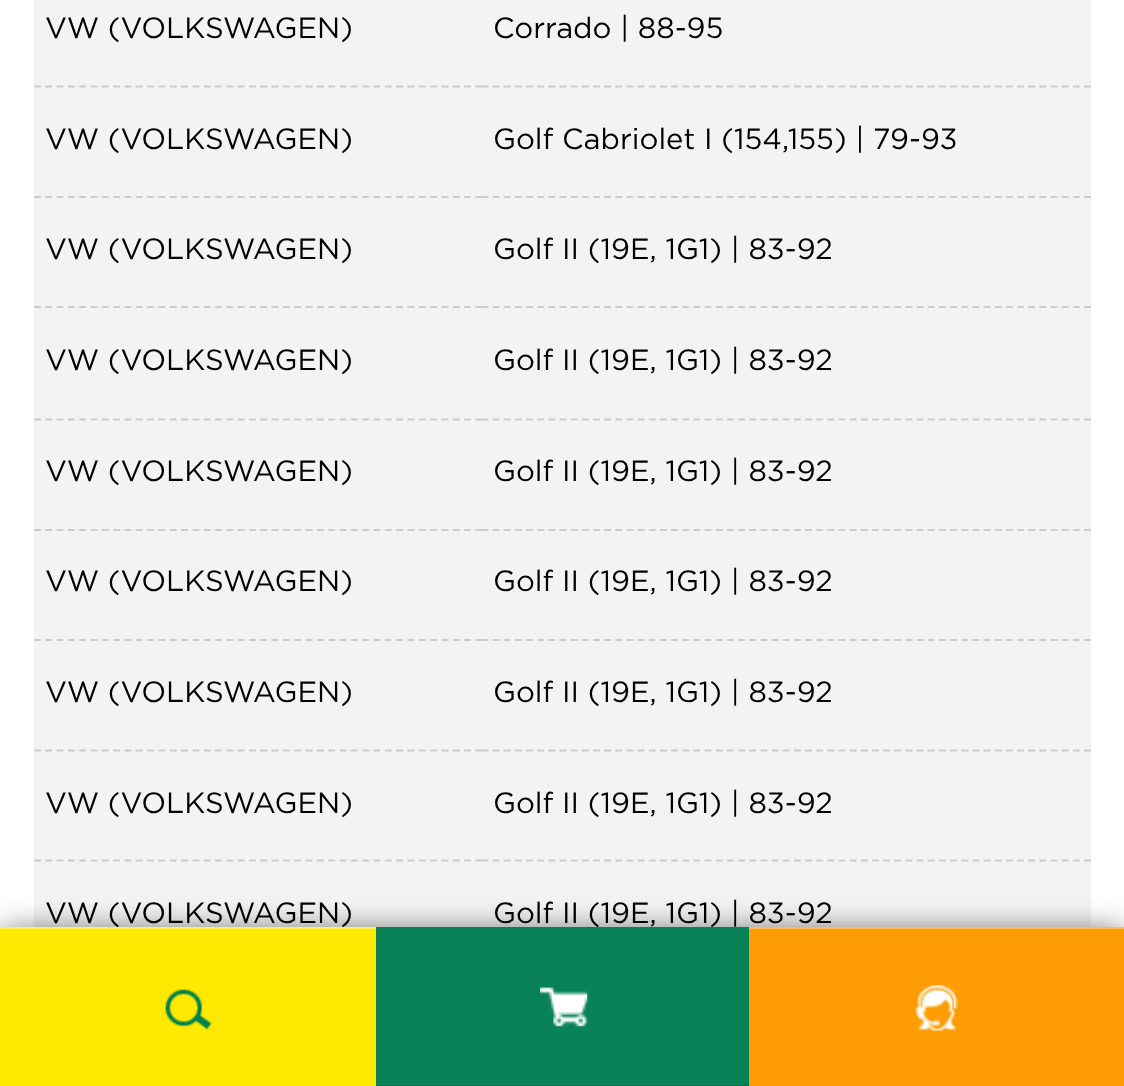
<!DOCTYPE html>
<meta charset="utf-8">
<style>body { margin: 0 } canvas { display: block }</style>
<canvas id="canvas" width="1124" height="1086"></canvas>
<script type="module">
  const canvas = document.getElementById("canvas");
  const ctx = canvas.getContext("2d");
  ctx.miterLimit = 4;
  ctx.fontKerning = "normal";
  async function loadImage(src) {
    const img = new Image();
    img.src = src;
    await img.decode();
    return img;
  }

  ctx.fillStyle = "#ffffff";
  ctx.fillRect(0, 0, 1124, 1086);
  ctx.fillStyle = "#f3f3f3";
  ctx.fillRect(34, 0, 1057, 198);
  ctx.beginPath();
  ctx.moveTo(34, 86.5);
  ctx.lineTo(481.5, 86.5);
  ctx.strokeStyle = "#cccccc";
  ctx.lineWidth = 2.2;
  ctx.setLineDash([6.75, 4.57]);
  ctx.stroke();
  ctx.font = "29.25px Gotham";
  ctx.fillStyle = "#000000";
  ctx.fillText("VW (VOLKSWAGEN)", 45, 38);
  ctx.beginPath();
  ctx.moveTo(481.5, 86.5);
  ctx.lineTo(1091, 86.5);
  ctx.setLineDash([6.75, 4.41]);
  ctx.stroke();
  ctx.fillText("Corrado | 88-95", 493, 38);
  ctx.beginPath();
  ctx.moveTo(34, 197);
  ctx.lineTo(481.5, 197);
  ctx.setLineDash([6.75, 4.57]);
  ctx.stroke();
  ctx.fillText("VW (VOLKSWAGEN)", 45, 149);
  ctx.beginPath();
  ctx.moveTo(481.5, 197);
  ctx.lineTo(1091, 197);
  ctx.setLineDash([6.75, 4.41]);
  ctx.stroke();
  ctx.fillText("Golf Cabriolet I (154,155) | 79-93", 493, 149);
  ctx.fillStyle = "#f3f3f3";
  ctx.fillRect(34, 198, 1057, 110);
  ctx.beginPath();
  ctx.moveTo(34, 307);
  ctx.lineTo(481.5, 307);
  ctx.setLineDash([6.75, 4.57]);
  ctx.stroke();
  ctx.fillStyle = "#000000";
  ctx.fillText("VW (VOLKSWAGEN)", 45, 259);
  ctx.beginPath();
  ctx.moveTo(481.5, 307);
  ctx.lineTo(1091, 307);
  ctx.setLineDash([6.75, 4.41]);
  ctx.stroke();
  ctx.fillText("Golf II (19E, 1G1) | 83-92", 493, 259);
  ctx.fillStyle = "#f3f3f3";
  ctx.fillRect(34, 308, 1057, 223);
  ctx.beginPath();
  ctx.moveTo(34, 419.5);
  ctx.lineTo(481.5, 419.5);
  ctx.setLineDash([6.75, 4.57]);
  ctx.stroke();
  ctx.fillStyle = "#000000";
  ctx.fillText("VW (VOLKSWAGEN)", 45, 370);
  ctx.beginPath();
  ctx.moveTo(481.5, 419.5);
  ctx.lineTo(1091, 419.5);
  ctx.setLineDash([6.75, 4.41]);
  ctx.stroke();
  ctx.fillText("Golf II (19E, 1G1) | 83-92", 493, 370);
  ctx.beginPath();
  ctx.moveTo(34, 530);
  ctx.lineTo(481.5, 530);
  ctx.setLineDash([6.75, 4.57]);
  ctx.stroke();
  ctx.fillText("VW (VOLKSWAGEN)", 45, 481);
  ctx.beginPath();
  ctx.moveTo(481.5, 530);
  ctx.lineTo(1091, 530);
  ctx.setLineDash([6.75, 4.41]);
  ctx.stroke();
  ctx.fillText("Golf II (19E, 1G1) | 83-92", 493, 481);
  ctx.fillStyle = "#f3f3f3";
  ctx.fillRect(34, 531, 1057, 110);
  ctx.beginPath();
  ctx.moveTo(34, 640);
  ctx.lineTo(481.5, 640);
  ctx.setLineDash([6.75, 4.57]);
  ctx.stroke();
  ctx.fillStyle = "#000000";
  ctx.fillText("VW (VOLKSWAGEN)", 45, 591);
  ctx.beginPath();
  ctx.moveTo(481.5, 640);
  ctx.lineTo(1091, 640);
  ctx.setLineDash([6.75, 4.41]);
  ctx.stroke();
  ctx.fillText("Golf II (19E, 1G1) | 83-92", 493, 591);
  ctx.fillStyle = "#f3f3f3";
  ctx.fillRect(34, 641, 1057, 286);
  ctx.beginPath();
  ctx.moveTo(34, 750.5);
  ctx.lineTo(481.5, 750.5);
  ctx.setLineDash([6.75, 4.57]);
  ctx.stroke();
  ctx.fillStyle = "#000000";
  ctx.fillText("VW (VOLKSWAGEN)", 45, 702);
  ctx.beginPath();
  ctx.moveTo(481.5, 750.5);
  ctx.lineTo(1091, 750.5);
  ctx.setLineDash([6.75, 4.41]);
  ctx.stroke();
  ctx.fillText("Golf II (19E, 1G1) | 83-92", 493, 702);
  ctx.beginPath();
  ctx.moveTo(34, 860.5);
  ctx.lineTo(481.5, 860.5);
  ctx.setLineDash([6.75, 4.57]);
  ctx.stroke();
  ctx.fillText("VW (VOLKSWAGEN)", 45, 813);
  ctx.beginPath();
  ctx.moveTo(481.5, 860.5);
  ctx.lineTo(1091, 860.5);
  ctx.setLineDash([6.75, 4.41]);
  ctx.stroke();
  ctx.fillText("Golf II (19E, 1G1) | 83-92", 493, 813);
  ctx.fillText("VW (VOLKSWAGEN)", 45, 923);
  ctx.fillText("Golf II (19E, 1G1) | 83-92", 493, 923);
  ctx.fillStyle = "rgba(0, 0, 0, 0.52)";
  ctx.filter = "blur(14.5px)";
  ctx.beginPath();
  ctx.rect(2, 929, 1121, 156);
  ctx.fill();
  ctx.filter = "none";
  ctx.fillStyle = "#feea00";
  ctx.fillRect(0, 929, 376, 157);
  ctx.fillStyle = "#fef04d";
  ctx.fillRect(0, 927, 376, 2);
  ctx.drawImage(await loadImage("img1.png"), 165, 989, 47, 41);
  ctx.fillStyle = "#098257";
  ctx.fillRect(376, 927, 373, 158);
  ctx.fillStyle = "#086f4a";
  ctx.fillRect(376, 1085, 373, 1);
  ctx.drawImage(await loadImage("img2.png"), 540, 987, 48, 40);
  ctx.fillStyle = "#ff9c03";
  ctx.fillRect(749, 929, 375, 157);
  ctx.fillStyle = "#ffba4f";
  ctx.fillRect(749, 927, 375, 2);
  ctx.drawImage(await loadImage("img3.png"), 915, 985, 43, 47);
</script>
